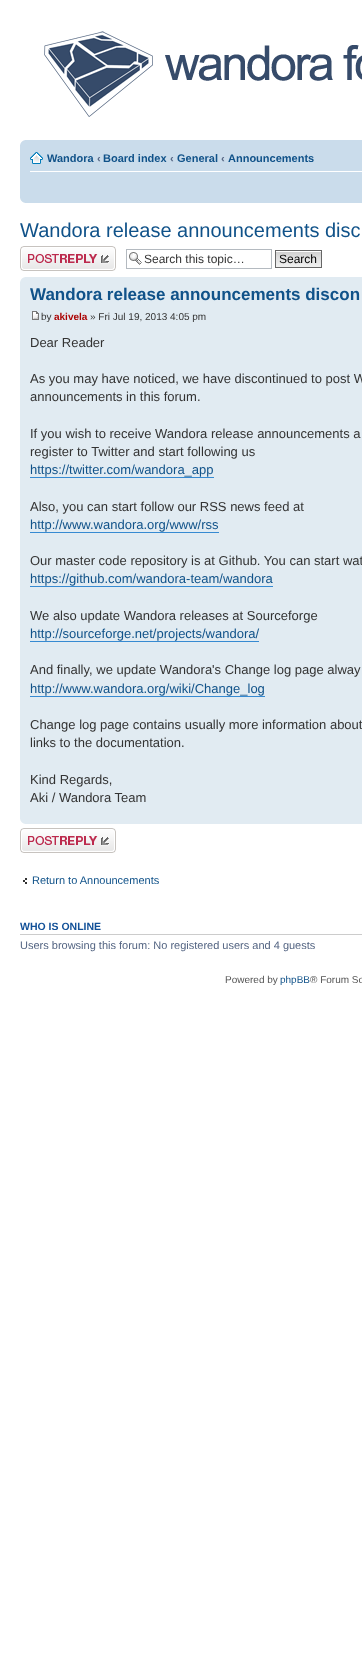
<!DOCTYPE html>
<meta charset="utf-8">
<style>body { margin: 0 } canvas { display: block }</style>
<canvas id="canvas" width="362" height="1662"></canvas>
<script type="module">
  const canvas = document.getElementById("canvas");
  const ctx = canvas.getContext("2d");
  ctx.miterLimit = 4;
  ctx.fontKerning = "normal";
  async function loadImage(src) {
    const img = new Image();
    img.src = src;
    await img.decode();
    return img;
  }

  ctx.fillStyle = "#ffffff";
  ctx.fillRect(0, 0, 362, 1662);
  ctx.drawImage(await loadImage("img1.png"), 44, 31, 318, 86);
  ctx.fillStyle = "#cadceb";
  ctx.fillRect(20, 140, 342, 63);
  ctx.drawImage(await loadImage("img2.png"), 20, 140, 5, 5);
  ctx.fillStyle = "#ffffff";
  ctx.fillRect(30, 171, 332, 1);
  ctx.drawImage(await loadImage("img3.png"), 30, 152, 13, 12);
  ctx.font = "bold 11px Liberation Sans";
  ctx.fillStyle = "#105289";
  ctx.fillText("Wandora", 47, 162);
  ctx.fillStyle = "#536482";
  ctx.fillText("‹", 97, 162);
  ctx.fillStyle = "#105289";
  ctx.fillText("Board index", 103, 162);
  ctx.fillStyle = "#536482";
  ctx.fillText("‹", 170, 162);
  ctx.fillStyle = "#105289";
  ctx.fillText("General", 177, 162);
  ctx.fillStyle = "#536482";
  ctx.fillText("‹", 221, 162);
  ctx.fillStyle = "#105289";
  ctx.fillText("Announcements", 228, 162);
  ctx.drawImage(await loadImage("img4.png"), 20, 198, 5, 5);
  ctx.font = "20px Liberation Sans";
  ctx.fillText("Wandora release announcements disc", 20, 237);
  ctx.drawImage(await loadImage("img5.png"), 20, 246, 96, 25);
  ctx.drawImage(await loadImage("img6.png"), 129, 252, 13, 13);
  ctx.strokeStyle = "#b4bac0";
  ctx.strokeRect(126.5, 249.5, 145, 19);
  ctx.font = "12px Liberation Sans";
  ctx.fillStyle = "#333333";
  ctx.fillText("Search this topic…", 144, 263);
  ctx.drawImage(await loadImage("img7.png"), 276, 251, 45, 16);
  ctx.strokeStyle = "#666666";
  ctx.strokeRect(275.5, 250.5, 46, 17);
  ctx.fillStyle = "#000000";
  ctx.fillText("Search", 279, 263);
  ctx.fillStyle = "#e1ebf2";
  ctx.fillRect(20, 277, 342, 547);
  ctx.drawImage(await loadImage("img8.png"), 20, 277, 5, 5);
  ctx.font = "bold 17px Liberation Sans";
  ctx.fillStyle = "#105289";
  ctx.fillText("Wandora release announcements discon", 30, 300);
  ctx.drawImage(await loadImage("img9.png"), 32, 311, 7, 9);
  ctx.font = "10px Liberation Sans";
  ctx.fillStyle = "#333333";
  ctx.fillText("by", 41, 320);
  ctx.font = "bold 10px Liberation Sans";
  ctx.fillStyle = "#aa0000";
  ctx.fillText("akivela", 54, 320);
  ctx.font = "10px Liberation Sans";
  ctx.fillStyle = "#333333";
  ctx.fillText("» Fri Jul 19, 2013 4:05 pm", 90, 320);
  ctx.font = "13px Liberation Sans";
  ctx.fillText("Dear Reader", 30, 347);
  ctx.fillText("As you may have noticed, we have discontinued to post W", 30, 383);
  ctx.fillText("announcements in this forum.", 30, 401);
  ctx.fillText("If you wish to receive Wandora release announcements a", 30, 438);
  ctx.fillText("register to Twitter and start following us", 30, 456);
  ctx.fillStyle = "#105289";
  ctx.fillText("https://twitter.com/wandora_app", 30, 474);
  ctx.fillStyle = "#368ad2";
  ctx.fillRect(30, 477, 184, 1);
  ctx.fillStyle = "#333333";
  ctx.fillText("Also, you can start follow our RSS news feed at", 30, 511);
  ctx.fillStyle = "#105289";
  ctx.fillText("http://www.wandora.org/www/rss", 30, 529);
  ctx.fillStyle = "#368ad2";
  ctx.fillRect(30, 532, 189, 1);
  ctx.fillStyle = "#333333";
  ctx.fillText("Our master code repository is at Github. You can start wat", 30, 565);
  ctx.fillStyle = "#105289";
  ctx.fillText("https://github.com/wandora-team/wandora", 30, 583);
  ctx.fillStyle = "#368ad2";
  ctx.fillRect(30, 586, 243, 1);
  ctx.fillStyle = "#333333";
  ctx.fillText("We also update Wandora releases at Sourceforge", 30, 620);
  ctx.fillStyle = "#105289";
  ctx.fillText("http://sourceforge.net/projects/wandora/", 30, 638);
  ctx.fillStyle = "#368ad2";
  ctx.fillRect(30, 641, 229, 1);
  ctx.fillStyle = "#333333";
  ctx.fillText("And finally, we update Wandora's Change log page alway", 30, 674);
  ctx.fillStyle = "#105289";
  ctx.fillText("http://www.wandora.org/wiki/Change_log", 30, 693);
  ctx.fillStyle = "#368ad2";
  ctx.fillRect(30, 696, 235, 1);
  ctx.fillStyle = "#333333";
  ctx.fillText("Change log page contains usually more information about", 30, 729);
  ctx.fillText("links to the documentation.", 30, 747);
  ctx.fillText("Kind Regards,", 30, 784);
  ctx.fillText("Aki / Wandora Team", 30, 802);
  ctx.drawImage(await loadImage("img10.png"), 20, 819, 5, 5);
  ctx.drawImage(await loadImage("img5.png"), 20, 828, 96, 25);
  ctx.drawImage(await loadImage("img11.png"), 23, 878, 4, 6);
  ctx.font = "11px Liberation Sans";
  ctx.fillStyle = "#105289";
  ctx.fillText("Return to Announcements", 32, 884);
  ctx.fillStyle = "#cccccc";
  ctx.fillRect(20, 934, 342, 1);
  ctx.font = "bold 10.5px Liberation Sans";
  ctx.fillStyle = "#115098";
  ctx.fillText("WHO IS ONLINE", 20, 930);
  ctx.font = "11px Liberation Sans";
  ctx.fillStyle = "#536482";
  ctx.fillText("Users browsing this forum: No registered users and 4 guests", 20, 949);
  ctx.font = "10px Liberation Sans";
  ctx.fillStyle = "#555555";
  ctx.fillText("Powered by", 225, 983);
  ctx.fillStyle = "#105289";
  ctx.fillText("phpBB", 280, 983);
  ctx.fillStyle = "#555555";
  ctx.fillText("® Forum So", 310, 983);
</script>
